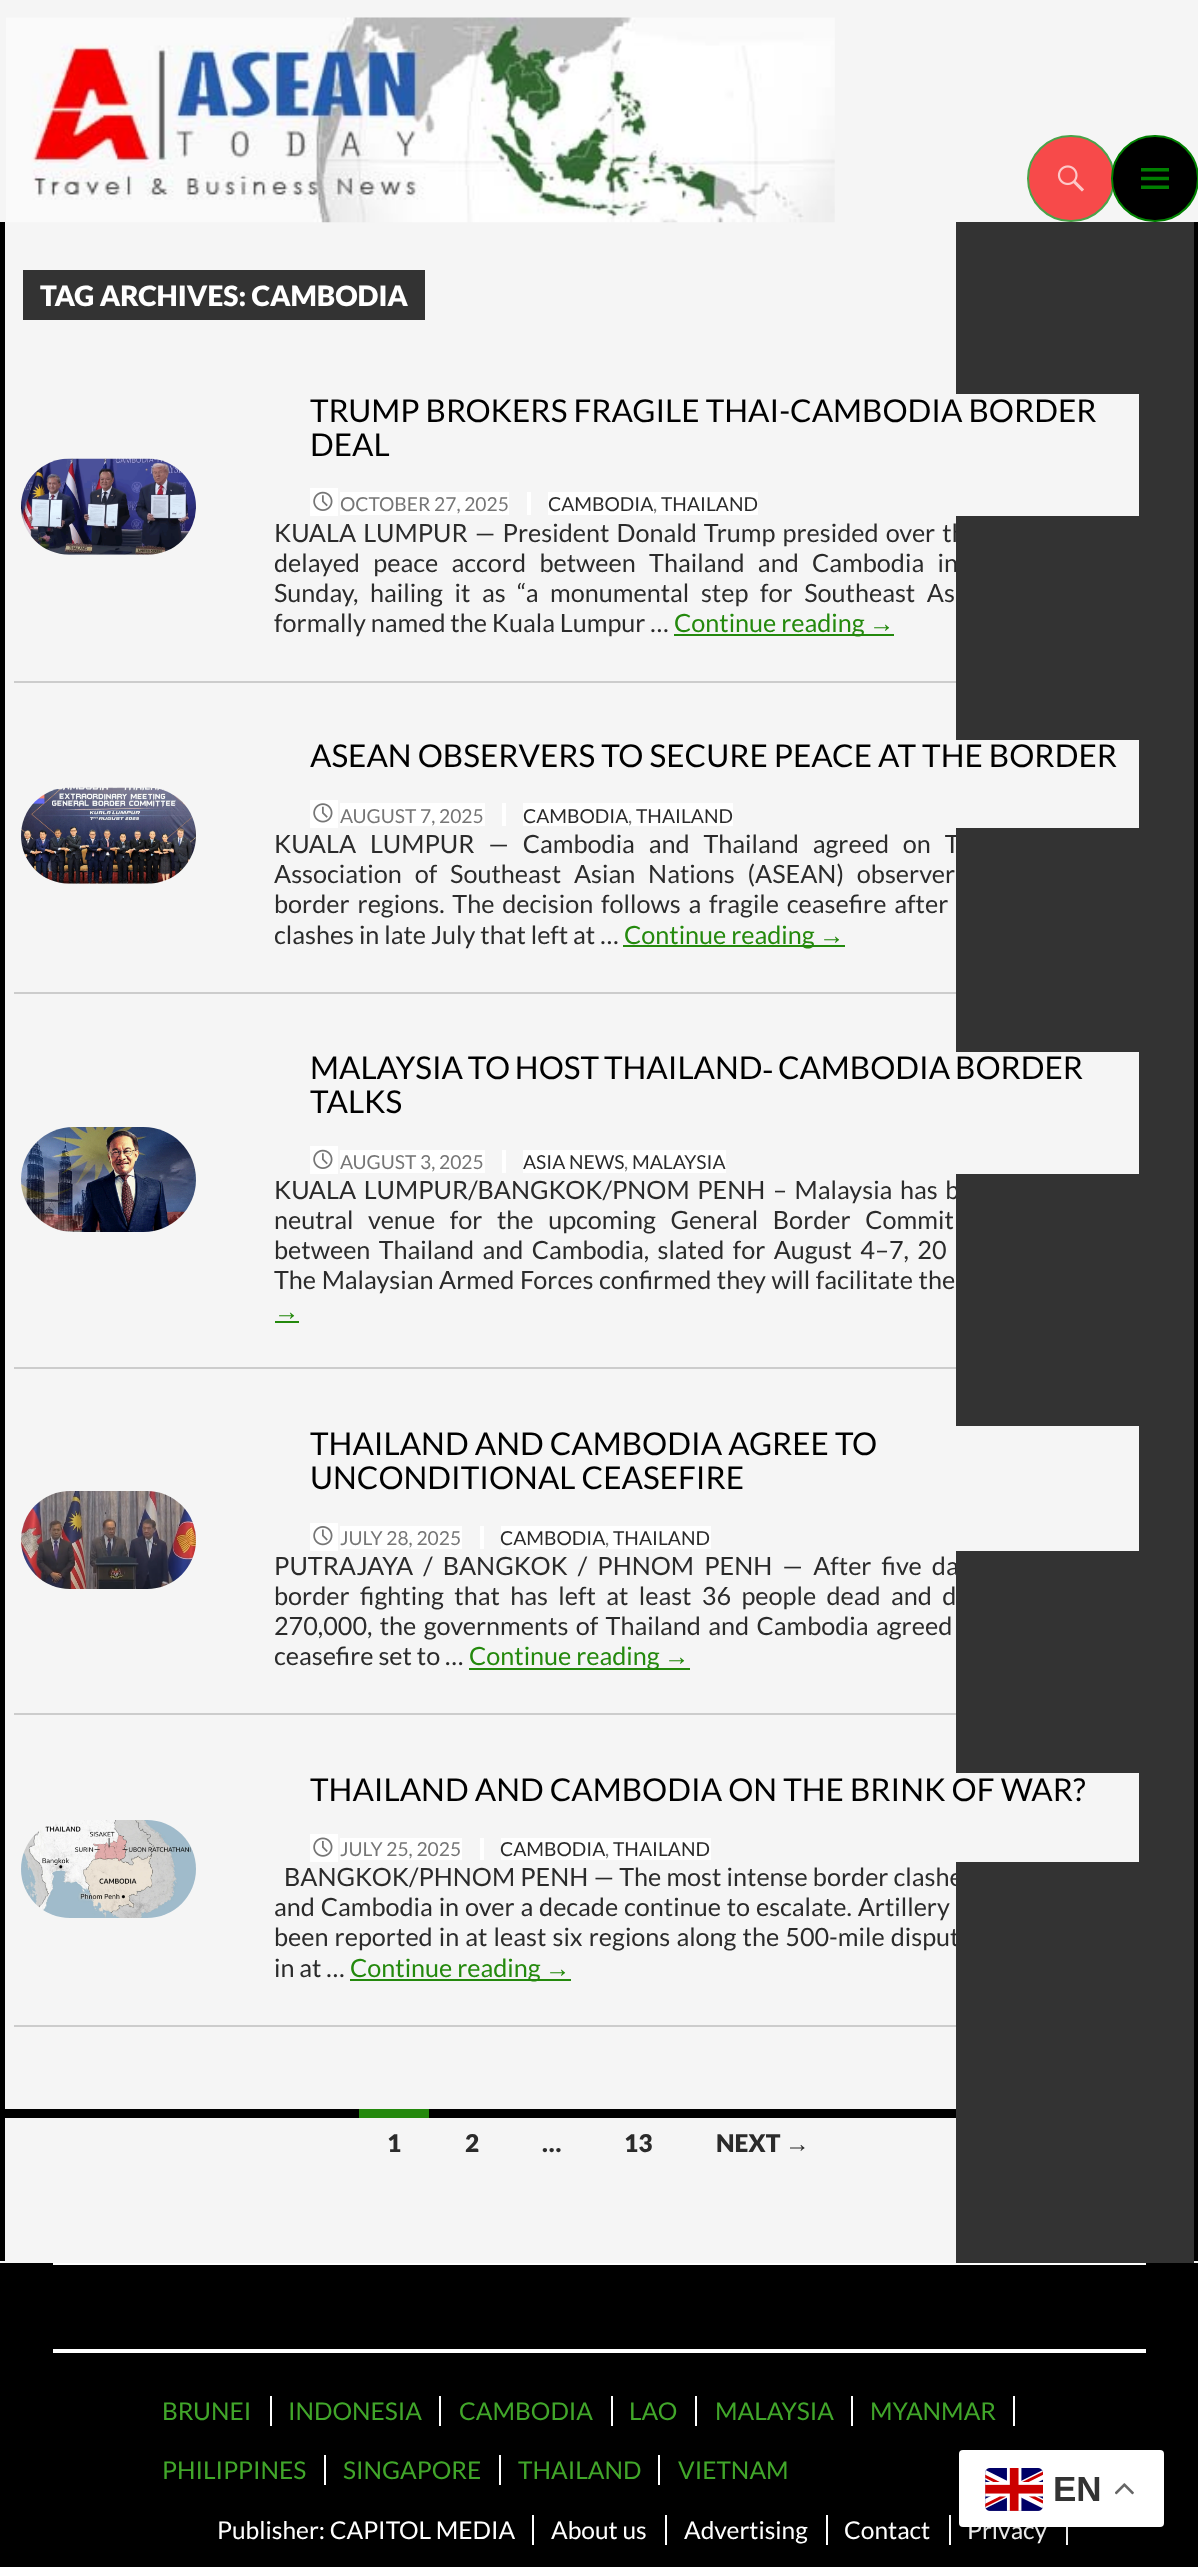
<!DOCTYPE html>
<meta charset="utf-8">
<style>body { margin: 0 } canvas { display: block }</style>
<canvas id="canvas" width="1198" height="2567"></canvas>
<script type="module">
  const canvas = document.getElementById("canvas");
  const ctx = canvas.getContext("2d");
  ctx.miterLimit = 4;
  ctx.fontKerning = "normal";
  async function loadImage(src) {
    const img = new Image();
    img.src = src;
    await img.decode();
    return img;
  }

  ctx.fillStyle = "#f5f5f5";
  ctx.fillRect(0, 0, 1198, 2567);
  ctx.drawImage(await loadImage("img1.png"), 6, 17, 829, 206);
  ctx.fillStyle = "#f74a4a";
  ctx.beginPath();
  ctx.roundRect(1028, 136, 86, 85, 42.5);
  ctx.fill();
  ctx.strokeStyle = "#4aa34a";
  ctx.lineWidth = 2;
  ctx.stroke();
  ctx.drawImage(await loadImage("img2.png"), 1057, 165, 27, 27);
  ctx.fillStyle = "#000000";
  ctx.beginPath();
  ctx.roundRect(1112, 136, 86, 85, 42.5);
  ctx.fill();
  ctx.strokeStyle = "#008000";
  ctx.stroke();
  ctx.drawImage(await loadImage("img3.png"), 1141, 168, 28, 21);
  ctx.fillRect(1194, 222, 4, 2039);
  ctx.fillRect(0, 222, 5, 2039);
  ctx.wordSpacing = "2.25px";
  ctx.font = "25.2px Lato";
  ctx.fillStyle = "#2b2b2b";
  ctx.fillText("KUALA LUMPUR — President Donald Trump presided over th", 274, 542);
  ctx.wordSpacing = "8.5px";
  ctx.fillText("delayed peace accord between Thailand and Cambodia in", 274, 572);
  ctx.wordSpacing = "9px";
  ctx.fillText("KUALA LUMPUR — Cambodia and Thailand agreed on T", 274, 853);
  ctx.wordSpacing = "2.75px";
  ctx.fillText("KUALA LUMPUR/BANGKOK/PNOM PENH – Malaysia has b", 274, 1199);
  ctx.wordSpacing = "5.25px";
  ctx.fillText("PUTRAJAYA / BANGKOK / PHNOM PENH — After five da", 274, 1575);
  ctx.wordSpacing = "0.25px";
  ctx.fillText("BANGKOK/PHNOM PENH — The most intense border clashe", 284, 1886);
  ctx.wordSpacing = "1.25px";
  ctx.fillText("been reported in at least six regions along the 500-mile disput", 274, 1946);
  ctx.fillStyle = "#333333";
  ctx.fillRect(956, 222, 238, 2041);
  ctx.fillRect(23, 270, 402, 50);
  ctx.wordSpacing = "0px";
  ctx.font = "900 28px Lato";
  ctx.fillStyle = "#ffffff";
  ctx.fillText("TAG ARCHIVES: CAMBODIA", 40, 306);
  ctx.fillStyle = "#cccccc";
  ctx.fillRect(14, 681, 942, 2);
  ctx.drawImage(await loadImage("img4.png"), 21, 458, 175, 97);
  ctx.fillStyle = "#f5f5f5";
  ctx.fillRect(956, 394, 183, 122);
  ctx.font = "31.5px Lato";
  ctx.fillStyle = "#000000";
  ctx.fillText("TRUMP BROKERS FRAGILE THAI-CAMBODIA BORDER", 310, 422);
  ctx.fillText("DEAL", 310, 456);
  ctx.fillStyle = "#ffffff";
  ctx.fillRect(310, 488, 28, 28);
  ctx.fillRect(340, 492, 169, 23);
  ctx.fillRect(527, 492, 4, 23);
  ctx.fillRect(548, 492, 210, 23);
  ctx.drawImage(await loadImage("img5.png"), 313, 491, 20, 20);
  ctx.font = "19.25px Lato";
  ctx.fillStyle = "#767676";
  ctx.fillText("OCTOBER 27, 2025", 340, 511);
  ctx.fillStyle = "#2b2b2b";
  ctx.fillText("CAMBODIA", 548, 511);
  ctx.fillStyle = "#767676";
  ctx.fillText(",", 653, 511);
  ctx.fillStyle = "#2b2b2b";
  ctx.fillText("THAILAND", 661, 511);
  ctx.wordSpacing = "6.75px";
  ctx.font = "25.2px Lato";
  ctx.fillText("Sunday, hailing it as “a monumental step for Southeast As", 274, 602);
  ctx.wordSpacing = "0px";
  ctx.fillText("formally named the Kuala Lumpur …", 274, 632);
  ctx.fillStyle = "#24890d";
  ctx.fillRect(674, 634, 220, 2);
  ctx.fillText("Continue reading", 674, 632);
  ctx.font = "25.2px Liberation Sans";
  ctx.fillText("→", 869, 632);
  ctx.fillStyle = "#cccccc";
  ctx.fillRect(14, 992, 942, 2);
  ctx.drawImage(await loadImage("img6.png"), 21, 787, 175, 97);
  ctx.fillStyle = "#f5f5f5";
  ctx.fillRect(956, 740, 183, 88);
  ctx.font = "31.5px Lato";
  ctx.fillStyle = "#000000";
  ctx.fillText("ASEAN OBSERVERS TO SECURE PEACE AT THE BORDER", 310, 767);
  ctx.fillStyle = "#ffffff";
  ctx.fillRect(310, 800, 28, 28);
  ctx.fillRect(340, 803, 145, 23);
  ctx.fillRect(502, 803, 4, 23);
  ctx.fillRect(523, 803, 210, 23);
  ctx.drawImage(await loadImage("img7.png"), 313, 803, 20, 20);
  ctx.font = "19.25px Lato";
  ctx.fillStyle = "#767676";
  ctx.fillText("AUGUST 7, 2025", 340, 823);
  ctx.fillStyle = "#2b2b2b";
  ctx.fillText("CAMBODIA", 523, 823);
  ctx.fillStyle = "#767676";
  ctx.fillText(",", 628, 823);
  ctx.fillStyle = "#2b2b2b";
  ctx.fillText("THAILAND", 636, 823);
  ctx.wordSpacing = "8px";
  ctx.font = "25.2px Lato";
  ctx.fillText("Association of Southeast Asian Nations (ASEAN) observer", 274, 883);
  ctx.wordSpacing = "3px";
  ctx.fillText("border regions. The decision follows a fragile ceasefire after", 274, 913);
  ctx.wordSpacing = "0px";
  ctx.fillText("clashes in late July that left at …", 274, 944);
  ctx.fillStyle = "#24890d";
  ctx.fillRect(623, 945, 222, 2);
  ctx.fillText("Continue reading", 624, 944);
  ctx.font = "25.2px Liberation Sans";
  ctx.fillText("→", 819, 944);
  ctx.fillStyle = "#cccccc";
  ctx.fillRect(14, 1367, 942, 2);
  ctx.drawImage(await loadImage("img8.png"), 21, 1127, 175, 105);
  ctx.fillStyle = "#f5f5f5";
  ctx.fillRect(956, 1052, 183, 122);
  ctx.wordSpacing = "-1.25px";
  ctx.font = "31.5px Lato";
  ctx.fillStyle = "#000000";
  ctx.fillText("MALAYSIA TO HOST THAILAND‑ CAMBODIA BORDER", 310, 1079);
  ctx.wordSpacing = "0px";
  ctx.fillText("TALKS", 310, 1113);
  ctx.fillStyle = "#ffffff";
  ctx.fillRect(310, 1146, 28, 28);
  ctx.fillRect(340, 1150, 145, 23);
  ctx.fillRect(502, 1150, 4, 23);
  ctx.fillRect(523, 1150, 203, 23);
  ctx.drawImage(await loadImage("img5.png"), 313, 1149, 20, 20);
  ctx.font = "19.25px Lato";
  ctx.fillStyle = "#767676";
  ctx.fillText("AUGUST 3, 2025", 340, 1169);
  ctx.fillStyle = "#2b2b2b";
  ctx.fillText("ASIA NEWS", 523, 1169);
  ctx.fillStyle = "#767676";
  ctx.fillText(",", 624, 1169);
  ctx.fillStyle = "#2b2b2b";
  ctx.fillText("MALAYSIA", 632, 1169);
  ctx.wordSpacing = "9.75px";
  ctx.font = "25.2px Lato";
  ctx.fillText("neutral venue for the upcoming General Border Commit", 274, 1229);
  ctx.wordSpacing = "3.5px";
  ctx.fillText("between Thailand and Cambodia, slated for August 4–7, 20", 274, 1259);
  ctx.wordSpacing = "0.75px";
  ctx.fillText("The Malaysian Armed Forces confirmed they will facilitate the", 274, 1289);
  ctx.wordSpacing = "0px";
  ctx.font = "25.2px Liberation Sans";
  ctx.fillStyle = "#24890d";
  ctx.fillText("→", 274, 1320);
  ctx.fillRect(275, 1321, 24, 2);
  ctx.fillStyle = "#cccccc";
  ctx.fillRect(14, 1713, 942, 2);
  ctx.drawImage(await loadImage("img9.png"), 21, 1491, 175, 98);
  ctx.fillStyle = "#f5f5f5";
  ctx.fillRect(956, 1426, 183, 125);
  ctx.font = "31.5px Lato";
  ctx.fillStyle = "#000000";
  ctx.fillText("THAILAND AND CAMBODIA AGREE TO", 310, 1455);
  ctx.fillText("UNCONDITIONAL CEASEFIRE", 310, 1489);
  ctx.fillStyle = "#ffffff";
  ctx.fillRect(310, 1523, 28, 28);
  ctx.fillRect(340, 1526, 122, 23);
  ctx.fillRect(480, 1526, 4, 23);
  ctx.fillRect(501, 1526, 210, 23);
  ctx.drawImage(await loadImage("img10.png"), 313, 1526, 20, 20);
  ctx.font = "19.25px Lato";
  ctx.fillStyle = "#767676";
  ctx.fillText("JULY 28, 2025", 340, 1545);
  ctx.fillStyle = "#2b2b2b";
  ctx.fillText("CAMBODIA", 500, 1545);
  ctx.fillStyle = "#767676";
  ctx.fillText(",", 605, 1545);
  ctx.fillStyle = "#2b2b2b";
  ctx.fillText("THAILAND", 613, 1545);
  ctx.wordSpacing = "5.5px";
  ctx.font = "25.2px Lato";
  ctx.fillText("border fighting that has left at least 36 people dead and d", 274, 1605);
  ctx.wordSpacing = "2.5px";
  ctx.fillText("270,000, the governments of Thailand and Cambodia agreed", 274, 1635);
  ctx.wordSpacing = "0px";
  ctx.fillText("ceasefire set to …", 274, 1665);
  ctx.fillStyle = "#24890d";
  ctx.fillRect(469, 1668, 221, 2);
  ctx.fillText("Continue reading", 469, 1665);
  ctx.font = "25.2px Liberation Sans";
  ctx.fillText("→", 664, 1665);
  ctx.fillStyle = "#cccccc";
  ctx.fillRect(14, 2025, 942, 2);
  ctx.drawImage(await loadImage("img11.png"), 21, 1820, 175, 98);
  ctx.fillStyle = "#f5f5f5";
  ctx.fillRect(956, 1773, 183, 89);
  ctx.font = "31.5px Lato";
  ctx.fillStyle = "#000000";
  ctx.fillText("THAILAND AND CAMBODIA ON THE BRINK OF WAR?", 310, 1801);
  ctx.fillStyle = "#ffffff";
  ctx.fillRect(310, 1834, 28, 28);
  ctx.fillRect(340, 1838, 122, 22);
  ctx.fillRect(480, 1838, 4, 22);
  ctx.fillRect(501, 1838, 210, 22);
  ctx.drawImage(await loadImage("img12.png"), 313, 1837, 20, 20);
  ctx.font = "19.25px Lato";
  ctx.fillStyle = "#767676";
  ctx.fillText("JULY 25, 2025", 340, 1856);
  ctx.fillStyle = "#2b2b2b";
  ctx.fillText("CAMBODIA", 500, 1856);
  ctx.fillStyle = "#767676";
  ctx.fillText(",", 605, 1856);
  ctx.fillStyle = "#2b2b2b";
  ctx.fillText("THAILAND", 613, 1856);
  ctx.wordSpacing = "1px";
  ctx.font = "25.2px Lato";
  ctx.fillText("and Cambodia in over a decade continue to escalate. Artillery", 274, 1916);
  ctx.wordSpacing = "0px";
  ctx.fillText("in at …", 274, 1977);
  ctx.fillStyle = "#24890d";
  ctx.fillRect(350, 1979, 221, 2);
  ctx.fillText("Continue reading", 350, 1977);
  ctx.font = "25.2px Liberation Sans";
  ctx.fillText("→", 545, 1977);
  ctx.fillStyle = "#000000";
  ctx.fillRect(5, 2109, 951, 9);
  ctx.fillStyle = "#24890d";
  ctx.fillRect(359, 2109, 70, 9);
  ctx.font = "900 24.5px Lato";
  ctx.fillStyle = "#2b2b2b";
  ctx.fillText("1", 387, 2152);
  ctx.fillText("2", 465, 2152);
  ctx.fillText("…", 542, 2152);
  ctx.fillText("13", 624, 2152);
  ctx.fillText("NEXT", 716, 2152);
  ctx.font = "bold 24.5px Liberation Sans";
  ctx.fillText("→", 785, 2152);
  ctx.fillStyle = "#000000";
  ctx.fillRect(0, 2263, 1198, 304);
  ctx.fillStyle = "#ffffff";
  ctx.fillRect(53, 2263, 1093, 2);
  ctx.fillRect(53, 2349, 1093, 4);
  ctx.font = "24.5px Lato";
  ctx.fillStyle = "#41a62a";
  ctx.fillText("BRUNEI", 162, 2420);
  ctx.fillStyle = "#ffffff";
  ctx.fillRect(270, 2396, 2, 30);
  ctx.fillStyle = "#41a62a";
  ctx.fillText("INDONESIA", 288, 2420);
  ctx.fillStyle = "#ffffff";
  ctx.fillRect(439, 2396, 2, 30);
  ctx.fillStyle = "#41a62a";
  ctx.fillText("CAMBODIA", 459, 2420);
  ctx.fillStyle = "#ffffff";
  ctx.fillRect(611, 2396, 2, 30);
  ctx.fillStyle = "#41a62a";
  ctx.fillText("LAO", 629, 2420);
  ctx.fillStyle = "#ffffff";
  ctx.fillRect(695, 2396, 2, 30);
  ctx.fillStyle = "#41a62a";
  ctx.fillText("MALAYSIA", 715, 2420);
  ctx.fillStyle = "#ffffff";
  ctx.fillRect(851, 2396, 2, 30);
  ctx.fillStyle = "#41a62a";
  ctx.fillText("MYANMAR", 870, 2420);
  ctx.fillStyle = "#ffffff";
  ctx.fillRect(1013, 2396, 2, 30);
  ctx.fillStyle = "#41a62a";
  ctx.fillText("PHILIPPINES", 162, 2479);
  ctx.fillStyle = "#ffffff";
  ctx.fillRect(324, 2455, 2, 30);
  ctx.fillStyle = "#41a62a";
  ctx.fillText("SINGAPORE", 343, 2479);
  ctx.fillStyle = "#ffffff";
  ctx.fillRect(499, 2455, 2, 30);
  ctx.fillStyle = "#41a62a";
  ctx.fillText("THAILAND", 518, 2479);
  ctx.fillStyle = "#ffffff";
  ctx.fillRect(658, 2455, 2, 30);
  ctx.fillStyle = "#41a62a";
  ctx.fillText("VIETNAM", 678, 2479);
  ctx.fillStyle = "#ffffff";
  ctx.fillText("Publisher: CAPITOL MEDIA", 217, 2539);
  ctx.fillRect(532, 2515, 2, 30);
  ctx.fillText("About us", 551, 2539);
  ctx.fillRect(665, 2515, 2, 30);
  ctx.fillText("Advertising", 684, 2539);
  ctx.fillRect(826, 2515, 2, 30);
  ctx.fillText("Contact", 844, 2539);
  ctx.fillRect(949, 2515, 2, 30);
  ctx.fillText("Privacy", 967, 2539);
  ctx.fillRect(1066, 2527, 2, 18);
  ctx.fillStyle = "rgba(0, 0, 0, 0.15)";
  ctx.filter = "blur(13px)";
  ctx.beginPath();
  ctx.roundRect(959, 2459, 205, 77, 4);
  ctx.fill();
  ctx.filter = "none";
  ctx.fillStyle = "#ffffff";
  ctx.beginPath();
  ctx.roundRect(959, 2450, 205, 77, 4);
  ctx.fill();
  ctx.drawImage(await loadImage("img13.png"), 985, 2468, 58, 43);
  ctx.font = "bold 35px Liberation Sans";
  ctx.fillStyle = "#333333";
  ctx.fillText("EN", 1053, 2501);
  ctx.drawImage(await loadImage("img14.png"), 1115, 2483, 19, 12);
</script>
